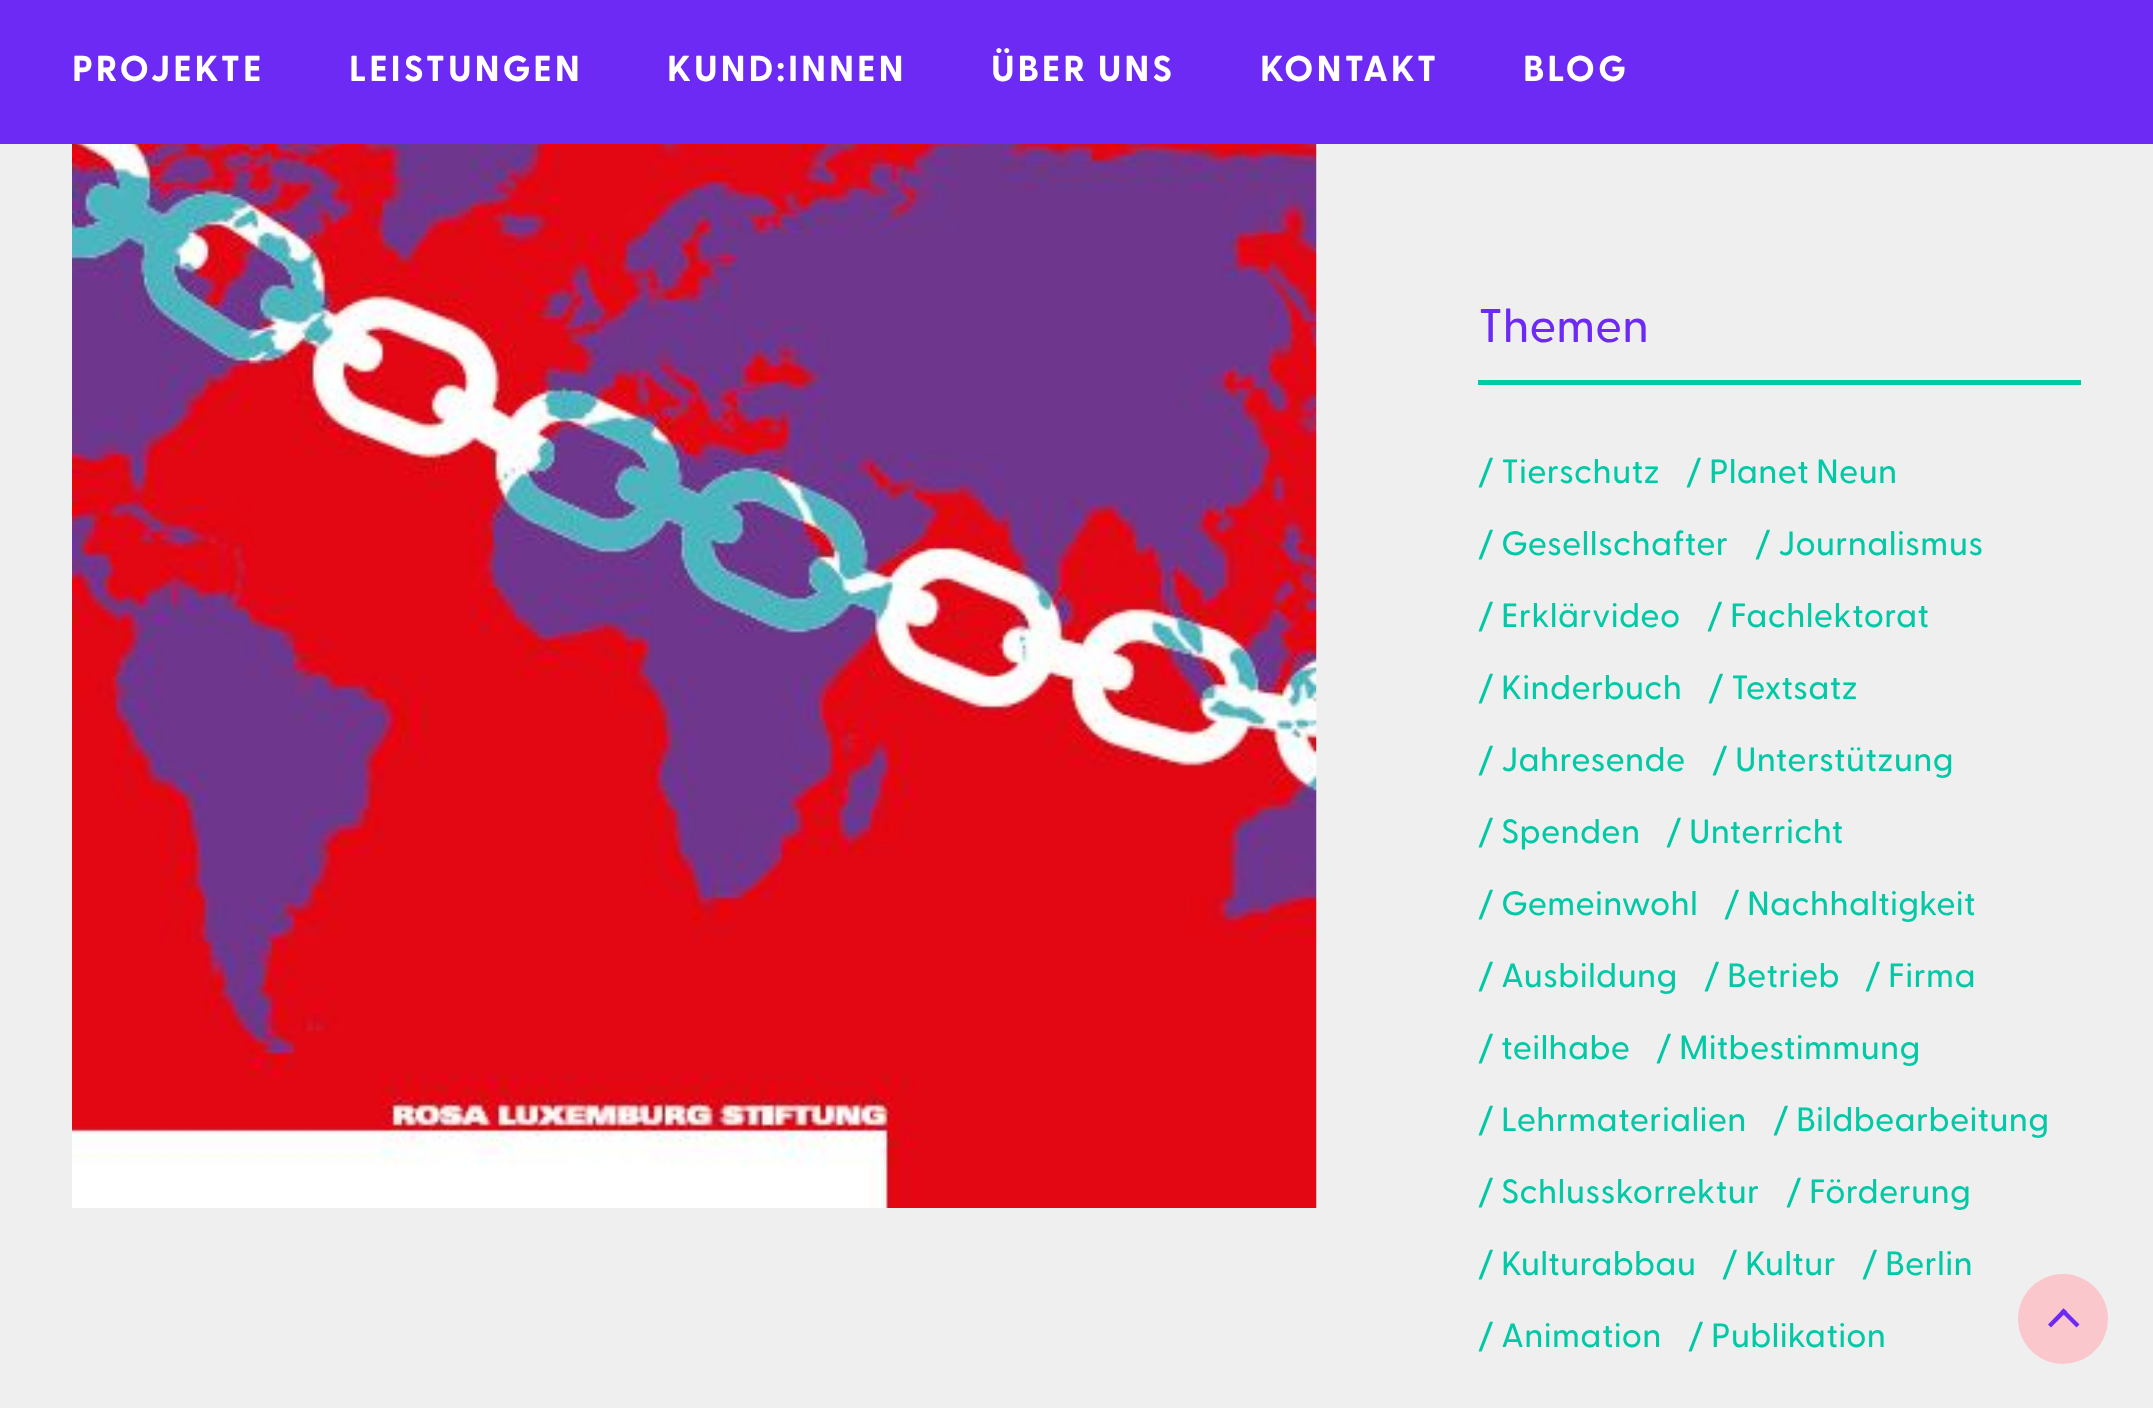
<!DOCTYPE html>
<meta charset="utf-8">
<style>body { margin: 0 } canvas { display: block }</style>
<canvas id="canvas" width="2153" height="1408"></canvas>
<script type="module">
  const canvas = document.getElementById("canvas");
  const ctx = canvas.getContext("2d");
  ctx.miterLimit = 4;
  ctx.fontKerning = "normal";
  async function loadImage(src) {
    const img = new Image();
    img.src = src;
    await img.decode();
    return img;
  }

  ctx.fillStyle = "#efefef";
  ctx.fillRect(0, 0, 2153, 1408);
  ctx.fillStyle = "#6e2af5";
  ctx.fillRect(0, 0, 2153, 144);
  ctx.letterSpacing = "2.9px";
  ctx.font = "bold 36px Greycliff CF";
  ctx.fillStyle = "#ffffff";
  ctx.fillText("PROJEKTE", 72, 81);
  ctx.fillText("LEISTUNGEN", 349, 81);
  ctx.fillText("KUND:INNEN", 667, 81);
  ctx.fillText("ÜBER UNS", 991, 81);
  ctx.fillText("KONTAKT", 1260, 81);
  ctx.fillText("BLOG", 1523, 81);
  ctx.drawImage(await loadImage("img1.png"), 72, 144, 1245, 1064);
  ctx.fillStyle = "#00c9a6";
  ctx.fillRect(1478, 380, 603, 5);
  ctx.letterSpacing = "0px";
  ctx.font = "500 47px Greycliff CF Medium";
  ctx.fillStyle = "#6e2af5";
  ctx.fillText("Themen", 1478, 342);
  ctx.letterSpacing = "0.3px";
  ctx.font = "500 33.75px Greycliff CF Medium";
  ctx.fillStyle = "#00c9a6";
  ctx.fillText("/ Tierschutz", 1478, 483);
  ctx.fillText("/ Planet Neun", 1686, 483);
  ctx.fillText("/ Gesellschafter", 1478, 555);
  ctx.fillText("/ Journalismus", 1755, 555);
  ctx.fillText("/ Erklärvideo", 1478, 627);
  ctx.fillText("/ Fachlektorat", 1707, 627);
  ctx.fillText("/ Kinderbuch", 1478, 699);
  ctx.fillText("/ Textsatz", 1708, 699);
  ctx.fillText("/ Jahresende", 1478, 771);
  ctx.fillText("/ Unterstützung", 1712, 771);
  ctx.fillText("/ Spenden", 1478, 843);
  ctx.fillText("/ Unterricht", 1666, 843);
  ctx.fillText("/ Gemeinwohl", 1478, 915);
  ctx.fillText("/ Nachhaltigkeit", 1724, 915);
  ctx.fillText("/ Ausbildung", 1478, 987);
  ctx.fillText("/ Betrieb", 1704, 987);
  ctx.fillText("/ Firma", 1865, 987);
  ctx.fillText("/ teilhabe", 1478, 1059);
  ctx.fillText("/ Mitbestimmung", 1656, 1059);
  ctx.fillText("/ Lehrmaterialien", 1478, 1131);
  ctx.fillText("/ Bildbearbeitung", 1773, 1131);
  ctx.fillText("/ Schlusskorrektur", 1478, 1203);
  ctx.fillText("/ Förderung", 1786, 1203);
  ctx.fillText("/ Kulturabbau", 1478, 1275);
  ctx.fillText("/ Kultur", 1722, 1275);
  ctx.fillText("/ Berlin", 1862, 1275);
  ctx.fillText("/ Animation", 1478, 1347);
  ctx.fillText("/ Publikation", 1688, 1347);
  ctx.fillStyle = "#fac7cc";
  ctx.beginPath();
  ctx.arc(2063, 1319, 45, 0, Math.PI * 2);
  ctx.fill();
  ctx.fillStyle = "#6e2af5";
  ctx.beginPath();
  ctx.moveTo(2063.5, 1308.5);
  ctx.lineTo(2079.5, 1324.5);
  ctx.lineTo(2076.5, 1327.5);
  ctx.lineTo(2060.5, 1311.5);
  ctx.closePath();
  ctx.fill();
  ctx.beginPath();
  ctx.moveTo(2063.5, 1308.5);
  ctx.lineTo(2067, 1311.5);
  ctx.lineTo(2051, 1327.5);
  ctx.lineTo(2048, 1324.5);
  ctx.closePath();
  ctx.fill();
</script>
